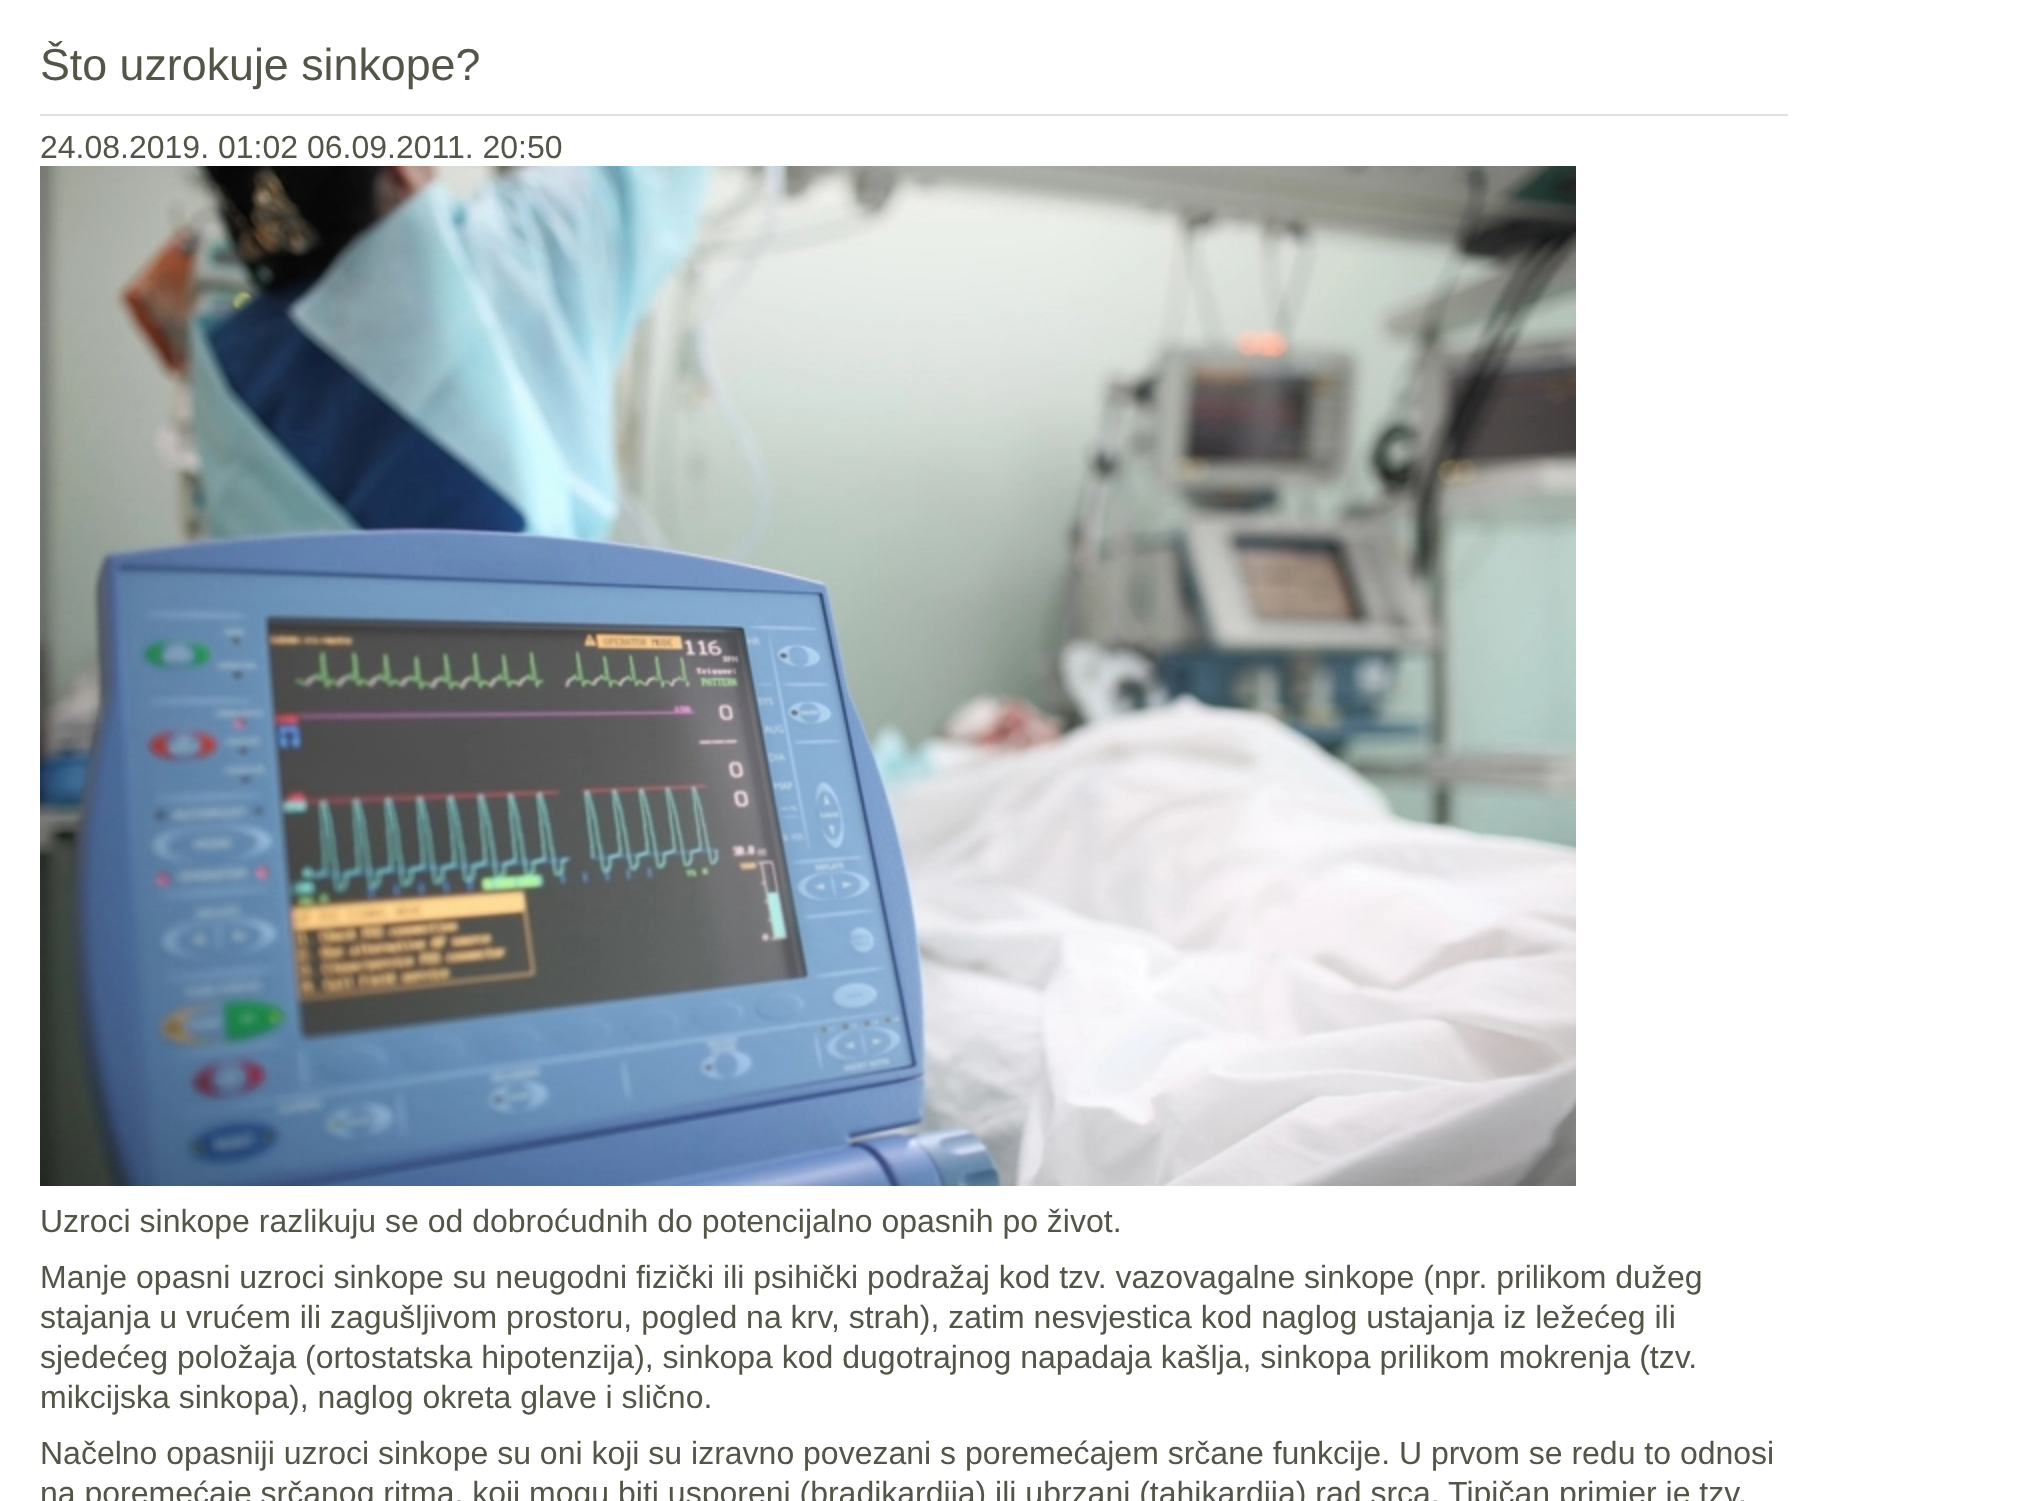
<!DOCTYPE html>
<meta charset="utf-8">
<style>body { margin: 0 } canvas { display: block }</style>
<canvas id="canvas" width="2021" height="1501"></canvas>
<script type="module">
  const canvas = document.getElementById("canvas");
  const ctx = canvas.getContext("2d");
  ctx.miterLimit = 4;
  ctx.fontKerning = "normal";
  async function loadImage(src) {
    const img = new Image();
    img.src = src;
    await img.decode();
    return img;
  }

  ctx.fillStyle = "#ffffff";
  ctx.fillRect(0, 0, 2021, 1501);
  ctx.font = "44.75px Liberation Sans";
  ctx.fillStyle = "#535548";
  ctx.fillText("Što uzrokuje sinkope?", 40, 80);
  ctx.fillStyle = "#e0e0e0";
  ctx.fillRect(40, 114, 1748, 2);
  ctx.font = "32px Liberation Sans";
  ctx.fillStyle = "#535548";
  ctx.fillText("24.08.2019. 01:02 06.09.2011. 20:50", 40, 158);
  ctx.drawImage(await loadImage("img1.png"), 40, 166, 1536, 1020);
  ctx.fillText("Uzroci sinkope razlikuju se od dobroćudnih do potencijalno opasnih po život.", 40, 1232);
  ctx.fillText("Manje opasni uzroci sinkope su neugodni fizički ili psihički podražaj kod tzv. vazovagalne sinkope (npr. prilikom dužeg", 40, 1288);
  ctx.fillText("stajanja u vrućem ili zagušljivom prostoru, pogled na krv, strah), zatim nesvjestica kod naglog ustajanja iz ležećeg ili", 40, 1328);
  ctx.fillText("sjedećeg položaja (ortostatska hipotenzija), sinkopa kod dugotrajnog napadaja kašlja, sinkopa prilikom mokrenja (tzv.", 40, 1368);
  ctx.fillText("mikcijska sinkopa), naglog okreta glave i slično.", 40, 1408);
  ctx.fillText("Načelno opasniji uzroci sinkope su oni koji su izravno povezani s poremećajem srčane funkcije. U prvom se redu to odnosi", 40, 1464);
  ctx.fillText("na poremećaje srčanog ritma, koji mogu biti usporeni (bradikardija) ili ubrzani (tahikardija) rad srca. Tipičan primjer je tzv.", 40, 1504);
</script>
